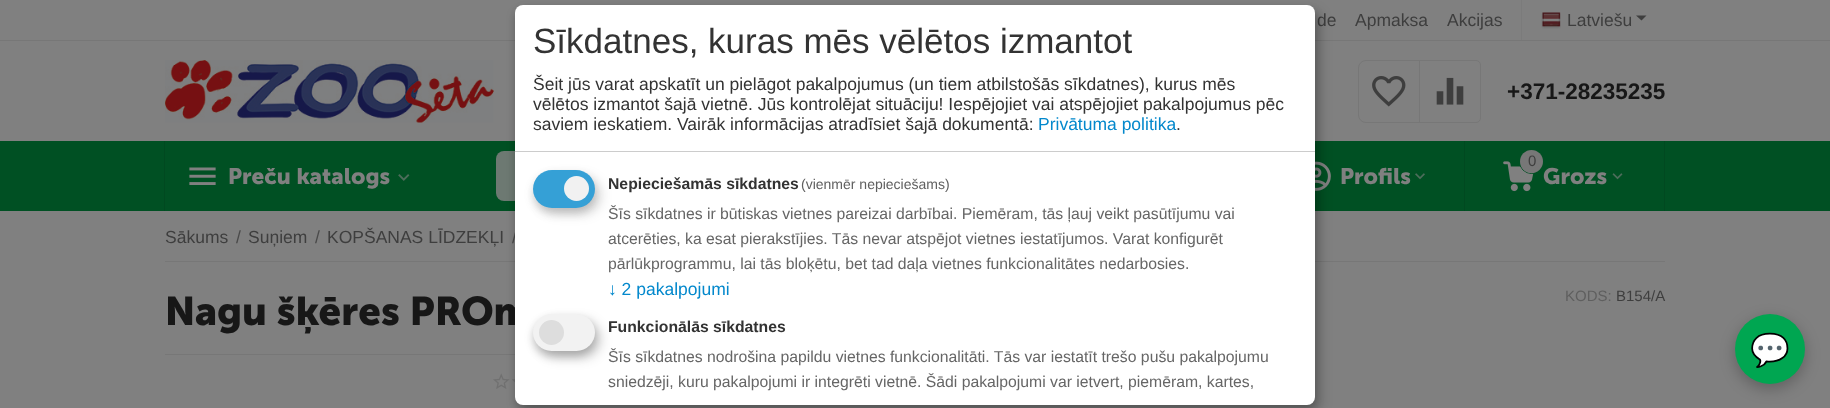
<!DOCTYPE html>
<meta charset="utf-8">
<style>body { margin: 0 } canvas { display: block }</style>
<canvas id="canvas" width="1830" height="408"></canvas>
<script type="module">
  const canvas = document.getElementById("canvas");
  const ctx = canvas.getContext("2d");
  ctx.miterLimit = 4;
  ctx.fontKerning = "normal";
  async function loadImage(src) {
    const img = new Image();
    img.src = src;
    await img.decode();
    return img;
  }

  ctx.fillStyle = "#808080";
  ctx.fillRect(0, 0, 1830, 408);
  ctx.fillStyle = "#777777";
  ctx.fillRect(0, 40, 1830, 1);
  ctx.font = "17.5px Liberation Sans";
  ctx.fillStyle = "#3e3e3e";
  ctx.fillText("de", 1317, 26);
  ctx.fillText("Apmaksa", 1355, 26);
  ctx.fillText("Akcijas", 1447, 26);
  ctx.fillStyle = "#7b7b7b";
  ctx.fillRect(1521, 0, 1, 40);
  ctx.drawImage(await loadImage("img1.png"), 1541, 12, 20, 17);
  ctx.fillStyle = "#3e3e3e";
  ctx.fillText("Latviešu", 1567, 26);
  ctx.beginPath();
  ctx.moveTo(1641.5, 20.5);
  ctx.lineTo(1636, 15.5);
  ctx.lineTo(1646.5, 15.5);
  ctx.closePath();
  ctx.fill();
  ctx.drawImage(await loadImage("img2.png"), 165, 60, 329, 63);
  ctx.beginPath();
  ctx.roundRect(1419.5, 60.5, 61, 62, [0, 4.5, 4.5, 0]);
  ctx.strokeStyle = "#777777";
  ctx.stroke();
  ctx.fillStyle = "#808080";
  ctx.beginPath();
  ctx.roundRect(1358.5, 60.5, 61, 62, [7.5, 0, 0, 7.5]);
  ctx.fill();
  ctx.stroke();
  ctx.drawImage(await loadImage("img3.png"), 1372, 76, 34, 31);
  ctx.drawImage(await loadImage("img4.png"), 1436, 77, 28, 28);
  ctx.font = "bold 22.5px Liberation Sans";
  ctx.fillStyle = "#171717";
  ctx.fillText("+371-28235235", 1507, 99);
  ctx.fillStyle = "#005023";
  ctx.fillRect(0, 141, 1830, 70);
  ctx.fillStyle = "#004920";
  ctx.fillRect(164, 141, 1, 70);
  ctx.drawImage(await loadImage("img5.png"), 189, 167, 27, 18);
  ctx.font = "bold 22.5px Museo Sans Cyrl";
  ctx.fillStyle = "#808080";
  ctx.fillText("Preču katalogs", 228, 184);
  ctx.drawImage(await loadImage("img6.png"), 398, 174, 12, 7);
  ctx.fillStyle = "#6d7972";
  ctx.beginPath();
  ctx.roundRect(496, 151, 750, 50, 8);
  ctx.fill();
  ctx.fillStyle = "#004920";
  ctx.fillRect(1464, 141, 1, 70);
  ctx.drawImage(await loadImage("img7.png"), 1315, 161, 16, 30);
  ctx.fillStyle = "#808080";
  ctx.fillText("Profils", 1340, 184);
  ctx.drawImage(await loadImage("img8.png"), 1415, 173, 10, 7);
  ctx.fillStyle = "#004920";
  ctx.fillRect(1664, 141, 1, 70);
  ctx.drawImage(await loadImage("img9.png"), 1503, 161, 31, 31);
  ctx.fillStyle = "#808080";
  ctx.fillText("Grozs", 1543, 184);
  ctx.beginPath();
  ctx.arc(1531.5, 161.5, 12, 0, Math.PI * 2);
  ctx.strokeStyle = "#005023";
  ctx.stroke();
  ctx.fillStyle = "#777777";
  ctx.beginPath();
  ctx.arc(1531.5, 161.5, 11.5, 0, Math.PI * 2);
  ctx.fill();
  ctx.font = "15px Liberation Sans";
  ctx.fillStyle = "#3e3e3e";
  ctx.fillText("0", 1528, 166);
  ctx.drawImage(await loadImage("img10.png"), 1612, 173, 11, 7);
  ctx.fillStyle = "#777777";
  ctx.fillRect(165, 261, 1500, 1);
  ctx.font = "17.5px Liberation Sans";
  ctx.fillStyle = "#3e3e3e";
  ctx.fillText("Sākums", 165, 243);
  ctx.fillStyle = "#4a4a4a";
  ctx.fillText("/", 236, 243);
  ctx.fillStyle = "#3e3e3e";
  ctx.fillText("Suņiem", 248, 243);
  ctx.fillStyle = "#4a4a4a";
  ctx.fillText("/", 315, 243);
  ctx.fillStyle = "#3e3e3e";
  ctx.fillText("KOPŠANAS LĪDZEKĻI", 327, 243);
  ctx.fillStyle = "#4a4a4a";
  ctx.fillText("/", 512, 243);
  ctx.font = "bold 40px Museo Sans Cyrl";
  ctx.fillStyle = "#171717";
  ctx.fillText("Nagu šķēres PROm", 165, 325);
  ctx.fillStyle = "#777777";
  ctx.fillRect(165, 354, 350, 1);
  ctx.drawImage(await loadImage("img11.png"), 493, 373, 17, 16);
  ctx.drawImage(await loadImage("img12.png"), 512, 379, 3, 10);
  ctx.font = "15px Liberation Sans";
  ctx.fillStyle = "#5f5f5f";
  ctx.fillText("KODS:", 1565, 301);
  ctx.fillStyle = "#3e3e3e";
  ctx.fillText("B154/A", 1616, 301);
  ctx.fillStyle = "rgba(0, 0, 0, 0.19)";
  ctx.filter = "blur(6px)";
  ctx.beginPath();
  ctx.roundRect(521, 11, 800, 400, 8);
  ctx.fill();
  ctx.filter = "none";
  ctx.fillStyle = "rgba(0, 0, 0, 0.2)";
  ctx.filter = "blur(4px)";
  ctx.beginPath();
  ctx.roundRect(515, 10, 800, 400, 8);
  ctx.fill();
  ctx.filter = "none";
  ctx.fillStyle = "#ffffff";
  ctx.beginPath();
  ctx.roundRect(515, 5, 800, 400, 8);
  ctx.fill();
  ctx.fillStyle = "#cccccc";
  ctx.fillRect(515, 151, 800, 1);
  ctx.font = "35px Liberation Sans";
  ctx.fillStyle = "#333333";
  ctx.fillText("Sīkdatnes, kuras mēs vēlētos izmantot", 533, 53);
  ctx.font = "17.5px Liberation Sans";
  ctx.fillText("Šeit jūs varat apskatīt un pielāgot pakalpojumus (un tiem atbilstošās sīkdatnes), kurus mēs", 533, 90);
  ctx.fillText("vēlētos izmantot šajā vietnē. Jūs kontrolējat situāciju! Iespējojiet vai atspējojiet pakalpojumus pēc", 533, 110);
  ctx.fillText("saviem ieskatiem. Vairāk informācijas atradīsiet šajā dokumentā:", 533, 130);
  ctx.fillStyle = "#0388cc";
  ctx.fillText("Privātuma politika", 1038, 130);
  ctx.fillStyle = "#333333";
  ctx.fillText(".", 1176, 130);
  ctx.fillStyle = "rgba(0, 0, 0, 0.15)";
  ctx.filter = "blur(6px)";
  ctx.beginPath();
  ctx.roundRect(539, 176, 62, 38, 19);
  ctx.fill();
  ctx.filter = "none";
  ctx.fillStyle = "rgba(51, 51, 51, 0.2)";
  ctx.filter = "blur(4px)";
  ctx.beginPath();
  ctx.roundRect(533, 175, 62, 38, 19);
  ctx.fill();
  ctx.filter = "none";
  ctx.fillStyle = "#35a0d6";
  ctx.beginPath();
  ctx.roundRect(533, 170, 62, 38, 19);
  ctx.fill();
  ctx.fillStyle = "#f1f1f1";
  ctx.beginPath();
  ctx.arc(576.5, 188.5, 12.5, 0, Math.PI * 2);
  ctx.fill();
  ctx.font = "bold 15.75px Liberation Sans";
  ctx.fillStyle = "#333333";
  ctx.fillText("Nepieciešamās sīkdatnes", 608, 189);
  ctx.font = "14px Liberation Sans";
  ctx.fillStyle = "#5f5f5f";
  ctx.fillText("(vienmēr nepieciešams)", 801, 189);
  ctx.font = "15.75px Liberation Sans";
  ctx.fillStyle = "#666666";
  ctx.fillText("Šīs sīkdatnes ir būtiskas vietnes pareizai darbībai. Piemēram, tās ļauj veikt pasūtījumu vai", 608, 219);
  ctx.fillText("atcerēties, ka esat pierakstījies. Tās nevar atspējot vietnes iestatījumos. Varat konfigurēt", 608, 244);
  ctx.fillText("pārlūkprogrammu, lai tās bloķētu, bet tad daļa vietnes funkcionalitātes nedarbosies.", 608, 269);
  ctx.font = "17.5px Liberation Sans";
  ctx.fillStyle = "#0388cc";
  ctx.fillText("↓ 2 pakalpojumi", 608, 295);
  ctx.fillStyle = "rgba(0, 0, 0, 0.19)";
  ctx.filter = "blur(6px)";
  ctx.beginPath();
  ctx.roundRect(539, 320, 62, 38, 19);
  ctx.fill();
  ctx.filter = "none";
  ctx.fillStyle = "rgba(0, 0, 0, 0.2)";
  ctx.filter = "blur(4px)";
  ctx.beginPath();
  ctx.roundRect(533, 319, 62, 37, 18.5);
  ctx.fill();
  ctx.filter = "none";
  ctx.fillStyle = "#f2f2f2";
  ctx.beginPath();
  ctx.roundRect(533, 314, 62, 37, 18.5);
  ctx.fill();
  ctx.fillStyle = "#dddddd";
  ctx.beginPath();
  ctx.arc(551.5, 332.5, 12.5, 0, Math.PI * 2);
  ctx.fill();
  ctx.font = "bold 15.75px Liberation Sans";
  ctx.fillStyle = "#333333";
  ctx.fillText("Funkcionālās sīkdatnes", 608, 332);
  ctx.font = "15.75px Liberation Sans";
  ctx.fillStyle = "#666666";
  ctx.fillText("Šīs sīkdatnes nodrošina papildu vietnes funkcionalitāti. Tās var iestatīt trešo pušu pakalpojumu", 608, 362);
  ctx.fillText("sniedzēji, kuru pakalpojumi ir integrēti vietnē. Šādi pakalpojumi var ietvert, piemēram, kartes,", 608, 387);
  ctx.fillStyle = "rgba(0, 0, 0, 0.25)";
  ctx.filter = "blur(7.5px)";
  ctx.beginPath();
  ctx.roundRect(1735, 319, 70, 70, 35);
  ctx.fill();
  ctx.filter = "none";
  ctx.fillStyle = "#00a651";
  ctx.beginPath();
  ctx.arc(1770, 349, 35, 0, Math.PI * 2);
  ctx.fill();
  ctx.font = "32px Noto Color Emoji";
  ctx.fillStyle = "#ffffff";
  ctx.fillText("💬", 1750, 361);
</script>
